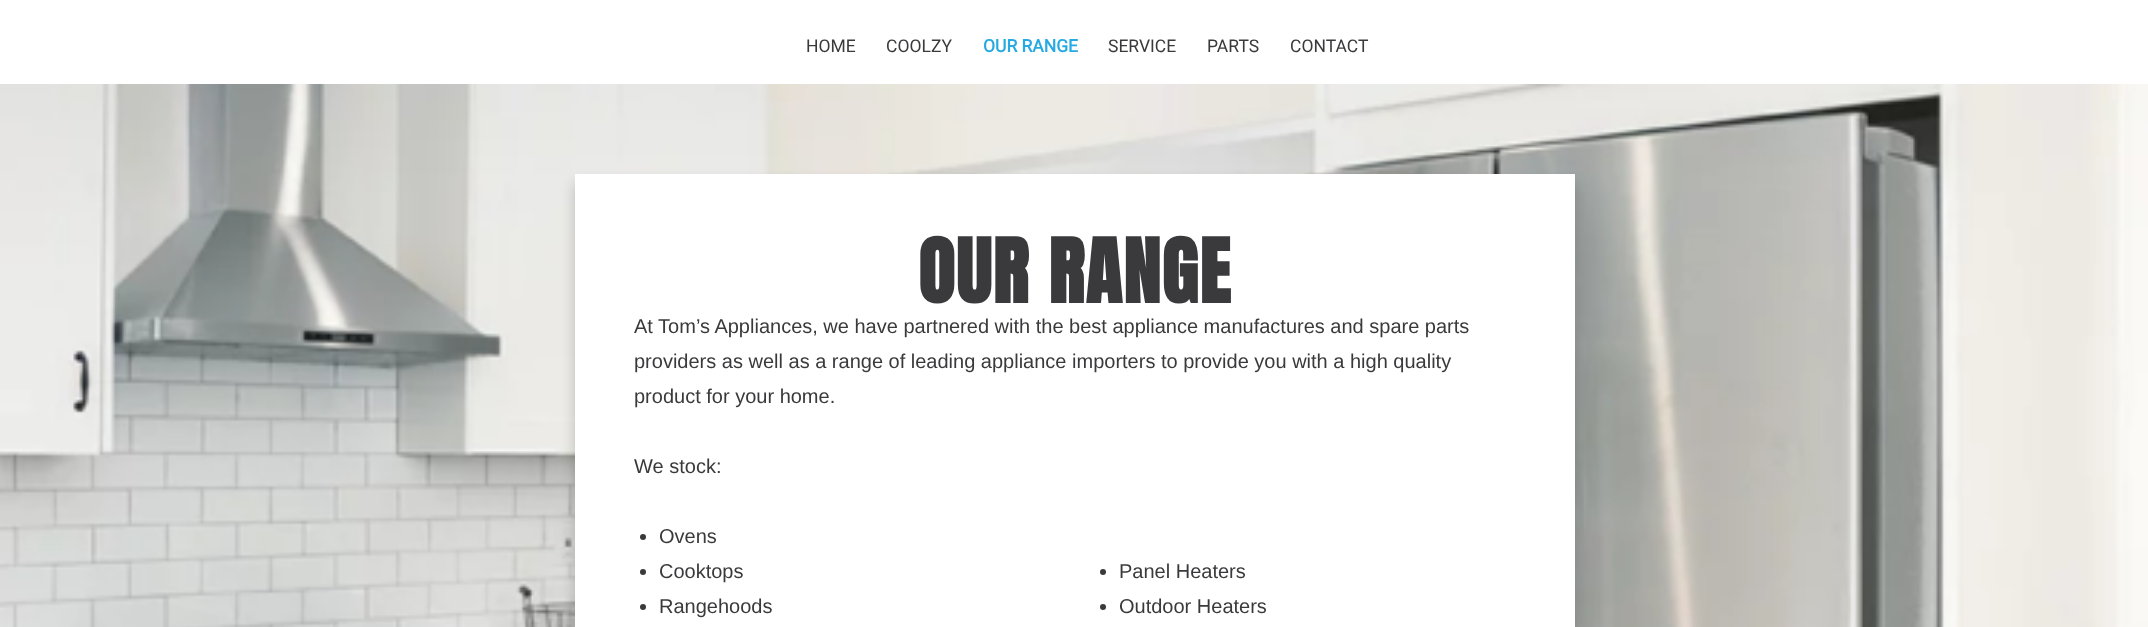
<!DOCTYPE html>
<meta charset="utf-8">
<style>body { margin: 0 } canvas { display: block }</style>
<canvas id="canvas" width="2148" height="627"></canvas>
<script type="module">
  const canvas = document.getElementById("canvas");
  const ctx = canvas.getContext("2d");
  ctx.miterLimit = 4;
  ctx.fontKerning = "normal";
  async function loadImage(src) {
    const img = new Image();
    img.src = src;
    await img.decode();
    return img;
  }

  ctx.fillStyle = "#ffffff";
  ctx.fillRect(0, 0, 2148, 627);
  ctx.font = "17.5px Roboto";
  ctx.fillStyle = "#3a3a3c";
  ctx.fillText("HOME", 806, 52);
  ctx.fillText("COOLZY", 886, 52);
  ctx.font = "bold 17.5px Roboto";
  ctx.fillStyle = "#27aae1";
  ctx.fillText("OUR RANGE", 983, 52);
  ctx.font = "17.5px Roboto";
  ctx.fillStyle = "#3a3a3c";
  ctx.fillText("SERVICE", 1108, 52);
  ctx.fillText("PARTS", 1207, 52);
  ctx.fillText("CONTACT", 1290, 52);
  ctx.drawImage(await loadImage("img1.png"), 0, 84, 2148, 543);
  ctx.fillStyle = "rgba(0, 0, 0, 0.2)";
  ctx.filter = "blur(7px)";
  ctx.beginPath();
  ctx.rect(575, 183, 1000, 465);
  ctx.fill();
  ctx.filter = "none";
  ctx.fillStyle = "#ffffff";
  ctx.fillRect(575, 174, 1000, 453);
  ctx.letterSpacing = "1.25px";
  ctx.font = "bold 75px Anton";
  ctx.fillStyle = "#3a3a3c";
  ctx.fillText("OUR RANGE", 918, 303);
  ctx.letterSpacing = "0px";
  ctx.font = "20px Liberation Sans";
  ctx.fillText("At Tom’s Appliances, we have partnered with the best appliance manufactures and spare parts", 634, 333);
  ctx.fillText("providers as well as a range of leading appliance importers to provide you with a high quality", 634, 368);
  ctx.fillText("product for your home.", 634, 403);
  ctx.fillText("We stock:", 634, 473);
  ctx.beginPath();
  ctx.arc(643, 537, 3, 0, Math.PI * 2);
  ctx.fill();
  ctx.fillText("Ovens", 659, 543);
  ctx.beginPath();
  ctx.arc(643, 572, 3, 0, Math.PI * 2);
  ctx.fill();
  ctx.fillText("Cooktops", 659, 578);
  ctx.beginPath();
  ctx.arc(643, 607, 3, 0, Math.PI * 2);
  ctx.fill();
  ctx.fillText("Rangehoods", 659, 613);
  ctx.beginPath();
  ctx.arc(1103, 572, 3, 0, Math.PI * 2);
  ctx.fill();
  ctx.fillText("Panel Heaters", 1119, 578);
  ctx.beginPath();
  ctx.arc(1103, 607, 3, 0, Math.PI * 2);
  ctx.fill();
  ctx.fillText("Outdoor Heaters", 1119, 613);
</script>
